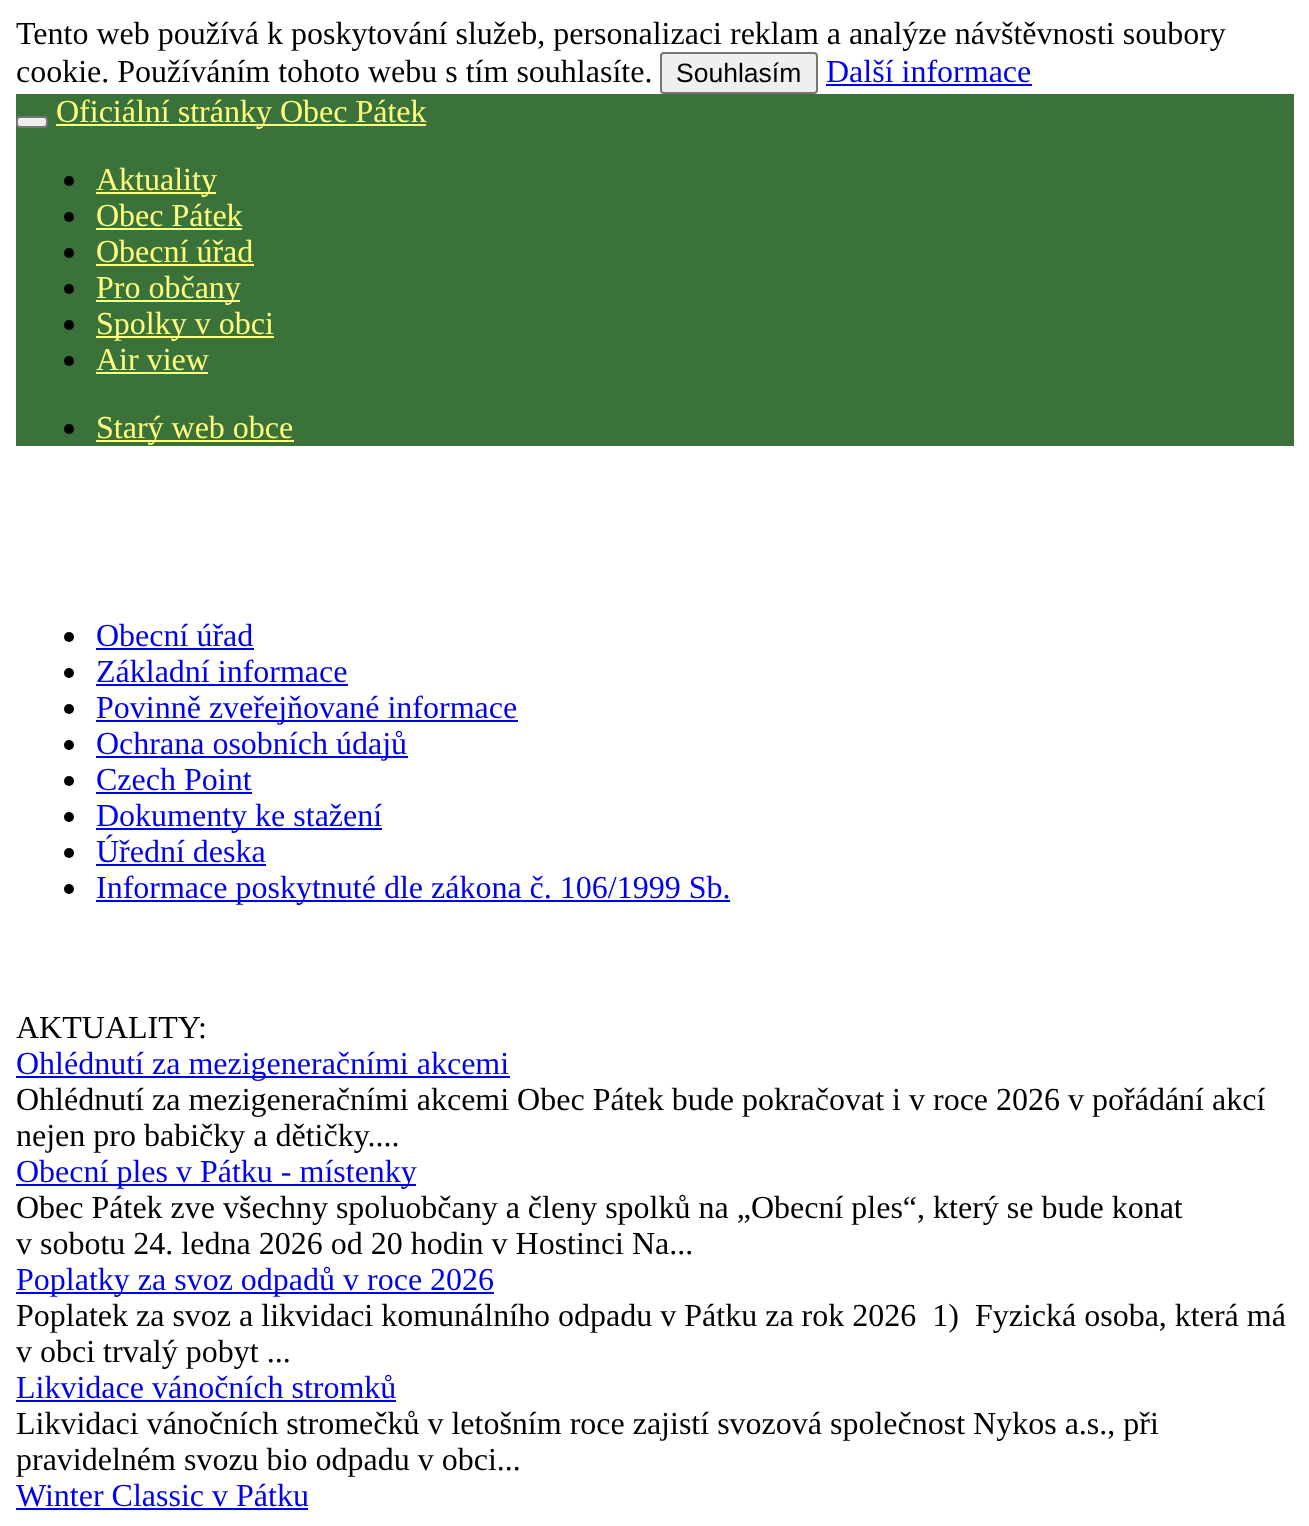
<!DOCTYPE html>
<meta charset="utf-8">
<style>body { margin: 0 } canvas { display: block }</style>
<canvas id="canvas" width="1309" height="1526"></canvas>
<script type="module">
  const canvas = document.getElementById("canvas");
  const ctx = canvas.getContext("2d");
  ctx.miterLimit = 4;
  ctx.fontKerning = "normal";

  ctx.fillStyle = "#ffffff";
  ctx.fillRect(0, 0, 1309, 1526);
  ctx.font = "32px Liberation Serif";
  ctx.fillStyle = "#000000";
  ctx.fillText("Tento web používá k poskytování služeb, personalizaci reklam a analýze návštěvnosti soubory", 16, 44);
  ctx.fillText("cookie. Používáním tohoto webu s tím souhlasíte.", 16, 82);
  ctx.fillStyle = "#efefef";
  ctx.beginPath();
  ctx.roundRect(661, 53, 156, 40, 3);
  ctx.fill();
  ctx.strokeStyle = "#767676";
  ctx.lineWidth = 2;
  ctx.stroke();
  ctx.font = "26.5px Liberation Sans";
  ctx.fillStyle = "#000000";
  ctx.fillText("Souhlasím", 676, 82);
  ctx.font = "32px Liberation Serif";
  ctx.fillStyle = "#0000ee";
  ctx.fillText("Další informace", 826, 82);
  ctx.fillRect(826, 84, 206, 2);
  ctx.fillStyle = "#3a723a";
  ctx.fillRect(16, 94, 1278, 352);
  ctx.fillStyle = "#efefef";
  ctx.beginPath();
  ctx.roundRect(17, 117, 30, 10, 3);
  ctx.fill();
  ctx.stroke();
  ctx.fillStyle = "#ffff80";
  ctx.fillRect(56, 124, 370, 2);
  ctx.fillText("Oficiální stránky Obec Pátek", 56, 122);
  ctx.fillStyle = "#000000";
  ctx.beginPath();
  ctx.arc(69, 181, 5, 0, Math.PI * 2);
  ctx.fill();
  ctx.fillStyle = "#ffff80";
  ctx.fillRect(96, 192, 120, 2);
  ctx.fillText("Aktuality", 96, 190);
  ctx.fillStyle = "#000000";
  ctx.beginPath();
  ctx.arc(69, 217, 5, 0, Math.PI * 2);
  ctx.fill();
  ctx.fillStyle = "#ffff80";
  ctx.fillText("Obec Pátek", 96, 226);
  ctx.fillRect(96, 228, 146, 2);
  ctx.fillStyle = "#000000";
  ctx.beginPath();
  ctx.arc(69, 253, 5, 0, Math.PI * 2);
  ctx.fill();
  ctx.fillStyle = "#ffff80";
  ctx.fillText("Obecní úřad", 96, 262);
  ctx.fillRect(96, 264, 158, 2);
  ctx.fillStyle = "#000000";
  ctx.beginPath();
  ctx.arc(69, 289, 5, 0, Math.PI * 2);
  ctx.fill();
  ctx.fillStyle = "#ffff80";
  ctx.fillRect(96, 300, 144, 2);
  ctx.fillText("Pro občany", 96, 298);
  ctx.fillStyle = "#000000";
  ctx.beginPath();
  ctx.arc(69, 325, 5, 0, Math.PI * 2);
  ctx.fill();
  ctx.fillStyle = "#ffff80";
  ctx.fillRect(96, 336, 178, 2);
  ctx.fillText("Spolky v obci", 96, 334);
  ctx.fillStyle = "#000000";
  ctx.beginPath();
  ctx.arc(69, 361, 5, 0, Math.PI * 2);
  ctx.fill();
  ctx.fillStyle = "#ffff80";
  ctx.fillText("Air view", 96, 370);
  ctx.fillRect(96, 372, 112, 2);
  ctx.fillStyle = "#000000";
  ctx.beginPath();
  ctx.arc(69, 429, 5, 0, Math.PI * 2);
  ctx.fill();
  ctx.fillStyle = "#ffff80";
  ctx.fillRect(96, 440, 198, 2);
  ctx.fillText("Starý web obce", 96, 438);
  ctx.fillStyle = "#000000";
  ctx.beginPath();
  ctx.arc(69, 637, 5, 0, Math.PI * 2);
  ctx.fill();
  ctx.fillStyle = "#0000ee";
  ctx.fillText("Obecní úřad", 96, 646);
  ctx.fillRect(96, 648, 158, 2);
  ctx.fillStyle = "#000000";
  ctx.beginPath();
  ctx.arc(69, 673, 5, 0, Math.PI * 2);
  ctx.fill();
  ctx.fillStyle = "#0000ee";
  ctx.fillText("Základní informace", 96, 682);
  ctx.fillRect(96, 684, 252, 2);
  ctx.fillStyle = "#000000";
  ctx.beginPath();
  ctx.arc(69, 709, 5, 0, Math.PI * 2);
  ctx.fill();
  ctx.fillStyle = "#0000ee";
  ctx.fillRect(96, 720, 422, 2);
  ctx.fillText("Povinně zveřejňované informace", 96, 718);
  ctx.fillStyle = "#000000";
  ctx.beginPath();
  ctx.arc(69, 745, 5, 0, Math.PI * 2);
  ctx.fill();
  ctx.fillStyle = "#0000ee";
  ctx.fillRect(96, 756, 312, 2);
  ctx.fillText("Ochrana osobních údajů", 96, 754);
  ctx.fillStyle = "#000000";
  ctx.beginPath();
  ctx.arc(69, 781, 5, 0, Math.PI * 2);
  ctx.fill();
  ctx.fillStyle = "#0000ee";
  ctx.fillText("Czech Point", 96, 790);
  ctx.fillRect(96, 792, 156, 2);
  ctx.fillStyle = "#000000";
  ctx.beginPath();
  ctx.arc(69, 817, 5, 0, Math.PI * 2);
  ctx.fill();
  ctx.fillStyle = "#0000ee";
  ctx.fillRect(96, 828, 286, 2);
  ctx.fillText("Dokumenty ke stažení", 96, 826);
  ctx.fillStyle = "#000000";
  ctx.beginPath();
  ctx.arc(69, 853, 5, 0, Math.PI * 2);
  ctx.fill();
  ctx.fillStyle = "#0000ee";
  ctx.fillText("Úřední deska", 96, 862);
  ctx.fillRect(96, 864, 170, 2);
  ctx.fillStyle = "#000000";
  ctx.beginPath();
  ctx.arc(69, 889, 5, 0, Math.PI * 2);
  ctx.fill();
  ctx.fillStyle = "#0000ee";
  ctx.fillRect(96, 900, 634, 2);
  ctx.fillText("Informace poskytnuté dle zákona č. 106/1999 Sb.", 96, 898);
  ctx.fillStyle = "#000000";
  ctx.fillText("AKTUALITY:", 16, 1038);
  ctx.fillStyle = "#0000ee";
  ctx.fillRect(16, 1076, 494, 2);
  ctx.fillText("Ohlédnutí za mezigeneračními akcemi", 16, 1074);
  ctx.fillStyle = "#000000";
  ctx.fillText("Ohlédnutí za mezigeneračními akcemi Obec Pátek bude pokračovat i v roce 2026 v pořádání akcí", 16, 1110);
  ctx.fillText("nejen pro babičky a dětičky....", 16, 1146);
  ctx.fillStyle = "#0000ee";
  ctx.fillRect(16, 1184, 400, 2);
  ctx.fillText("Obecní ples v Pátku - místenky", 16, 1182);
  ctx.fillStyle = "#000000";
  ctx.fillText("Obec Pátek zve všechny spoluobčany a členy spolků na „Obecní ples“, který se bude konat", 16, 1218);
  ctx.fillText("v sobotu 24. ledna 2026 od 20 hodin v Hostinci Na...", 16, 1254);
  ctx.fillStyle = "#0000ee";
  ctx.fillRect(16, 1292, 478, 2);
  ctx.fillText("Poplatky za svoz odpadů v roce 2026", 16, 1290);
  ctx.fillStyle = "#000000";
  ctx.fillText("Poplatek za svoz a likvidaci komunálního odpadu v Pátku za rok 2026  1)  Fyzická osoba, která má", 16, 1326);
  ctx.fillText("v obci trvalý pobyt ...", 16, 1362);
  ctx.fillStyle = "#0000ee";
  ctx.fillText("Likvidace vánočních stromků", 16, 1398);
  ctx.fillRect(16, 1400, 380, 2);
  ctx.fillStyle = "#000000";
  ctx.fillText("Likvidaci vánočních stromečků v letošním roce zajistí svozová společnost Nykos a.s., při", 16, 1434);
  ctx.fillText("pravidelném svozu bio odpadu v obci...", 16, 1470);
  ctx.fillStyle = "#0000ee";
  ctx.fillText("Winter Classic v Pátku", 16, 1506);
  ctx.fillRect(16, 1508, 292, 2);
</script>
